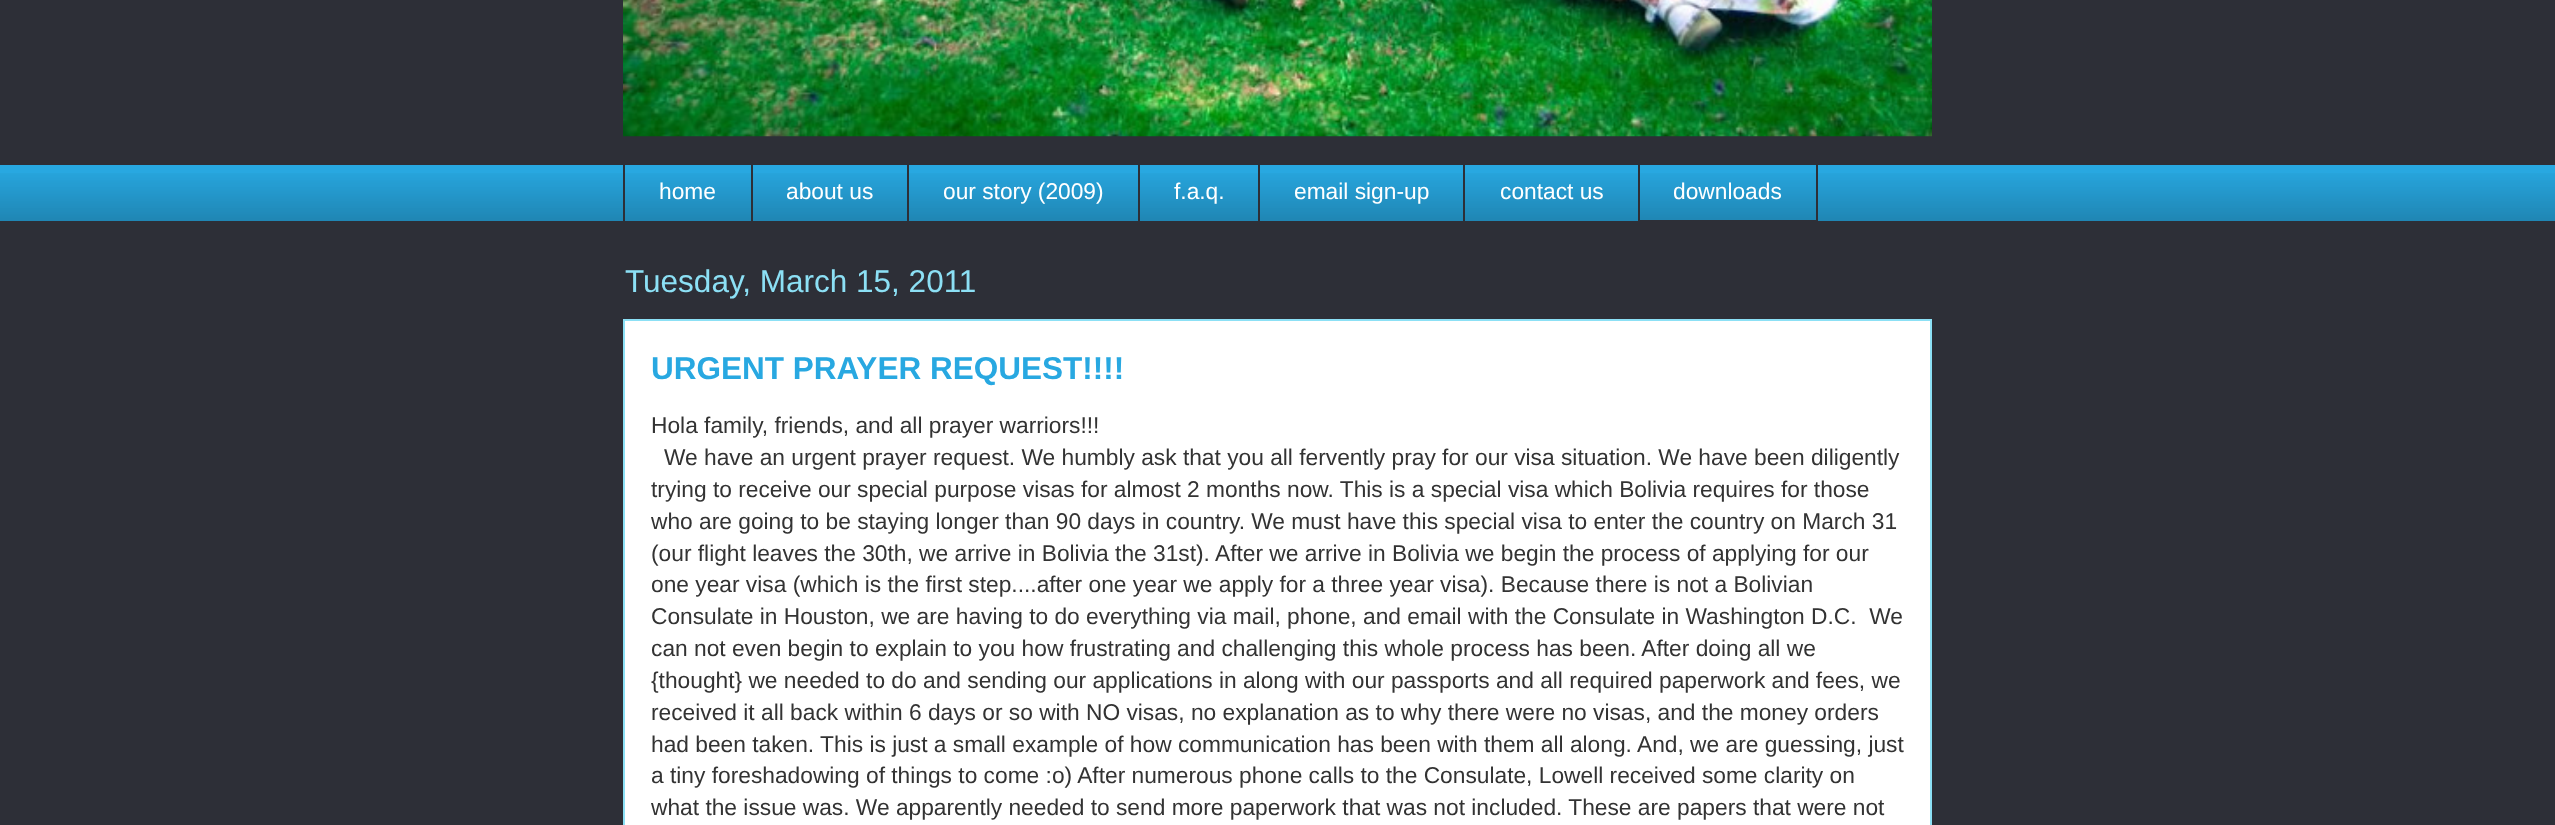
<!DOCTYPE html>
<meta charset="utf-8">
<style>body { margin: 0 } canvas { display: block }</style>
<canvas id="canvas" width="2555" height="825"></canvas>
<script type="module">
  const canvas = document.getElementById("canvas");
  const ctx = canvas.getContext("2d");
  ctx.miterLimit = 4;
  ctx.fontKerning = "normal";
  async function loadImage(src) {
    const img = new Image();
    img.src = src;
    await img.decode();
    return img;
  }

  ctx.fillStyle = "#2d2f37";
  ctx.fillRect(0, 0, 2555, 825);
  ctx.drawImage(await loadImage("img1.png"), 623, 0, 1309, 137);
  ctx.fillStyle = "#28a8e1";
  ctx.fillRect(0, 165, 2555, 56);
  ctx.drawImage(await loadImage("img2.png"), 0, 173, 2555, 48);
  ctx.fillStyle = "#2d2f37";
  ctx.fillRect(623, 163, 2, 59);
  ctx.font = "22.75px Liberation Sans";
  ctx.fillStyle = "#ffffff";
  ctx.fillText("home", 659, 199);
  ctx.fillStyle = "#2d2f37";
  ctx.fillRect(751, 163, 2, 59);
  ctx.fillStyle = "#ffffff";
  ctx.fillText("about us", 786, 199);
  ctx.fillStyle = "#2d2f37";
  ctx.fillRect(907, 163, 2, 59);
  ctx.fillStyle = "#ffffff";
  ctx.fillText("our story (2009)", 943, 199);
  ctx.fillStyle = "#2d2f37";
  ctx.fillRect(1138, 163, 2, 59);
  ctx.fillStyle = "#ffffff";
  ctx.fillText("f.a.q.", 1174, 199);
  ctx.fillStyle = "#2d2f37";
  ctx.fillRect(1258, 163, 2, 59);
  ctx.fillStyle = "#ffffff";
  ctx.fillText("email sign-up", 1294, 199);
  ctx.fillStyle = "#2d2f37";
  ctx.fillRect(1463, 163, 2, 59);
  ctx.fillStyle = "#ffffff";
  ctx.fillText("contact us", 1500, 199);
  ctx.strokeStyle = "#2d2f37";
  ctx.lineWidth = 2;
  ctx.strokeRect(1639, 164, 178, 57);
  ctx.fillText("downloads", 1673, 199);
  ctx.beginPath();
  ctx.rect(624, 320, 1307, 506);
  ctx.fill();
  ctx.strokeStyle = "#8ce0f5";
  ctx.stroke();
  ctx.font = "31.5px Liberation Sans";
  ctx.fillStyle = "#8ce0f5";
  ctx.fillText("Tuesday, March 15, 2011", 625, 292);
  ctx.font = "bold 31.5px Liberation Sans";
  ctx.fillStyle = "#28a8e1";
  ctx.fillText("URGENT PRAYER REQUEST!!!!", 651, 379);
  ctx.font = "22.75px Liberation Sans";
  ctx.fillStyle = "#333333";
  ctx.fillText("Hola family, friends, and all prayer warriors!!!", 651, 433);
  ctx.fillText("We have an urgent prayer request. We humbly ask that you all fervently pray for our visa situation. We have been diligently", 664, 465);
  ctx.fillText("trying to receive our special purpose visas for almost 2 months now. This is a special visa which Bolivia requires for those", 651, 497);
  ctx.fillText("who are going to be staying longer than 90 days in country. We must have this special visa to enter the country on March 31", 651, 529);
  ctx.fillText("(our flight leaves the 30th, we arrive in Bolivia the 31st). After we arrive in Bolivia we begin the process of applying for our", 651, 561);
  ctx.fillText("one year visa (which is the first step....after one year we apply for a three year visa). Because there is not a Bolivian", 651, 592);
  ctx.fillText("Consulate in Houston, we are having to do everything via mail, phone, and email with the Consulate in Washington D.C.  We", 651, 624);
  ctx.fillText("can not even begin to explain to you how frustrating and challenging this whole process has been. After doing all we", 651, 656);
  ctx.fillText("{thought} we needed to do and sending our applications in along with our passports and all required paperwork and fees, we", 651, 688);
  ctx.fillText("received it all back within 6 days or so with NO visas, no explanation as to why there were no visas, and the money orders", 651, 720);
  ctx.fillText("had been taken. This is just a small example of how communication has been with them all along. And, we are guessing, just", 651, 752);
  ctx.fillText("a tiny foreshadowing of things to come :o) After numerous phone calls to the Consulate, Lowell received some clarity on", 651, 783);
  ctx.fillText("what the issue was. We apparently needed to send more paperwork that was not included. These are papers that were not", 651, 815);
</script>
